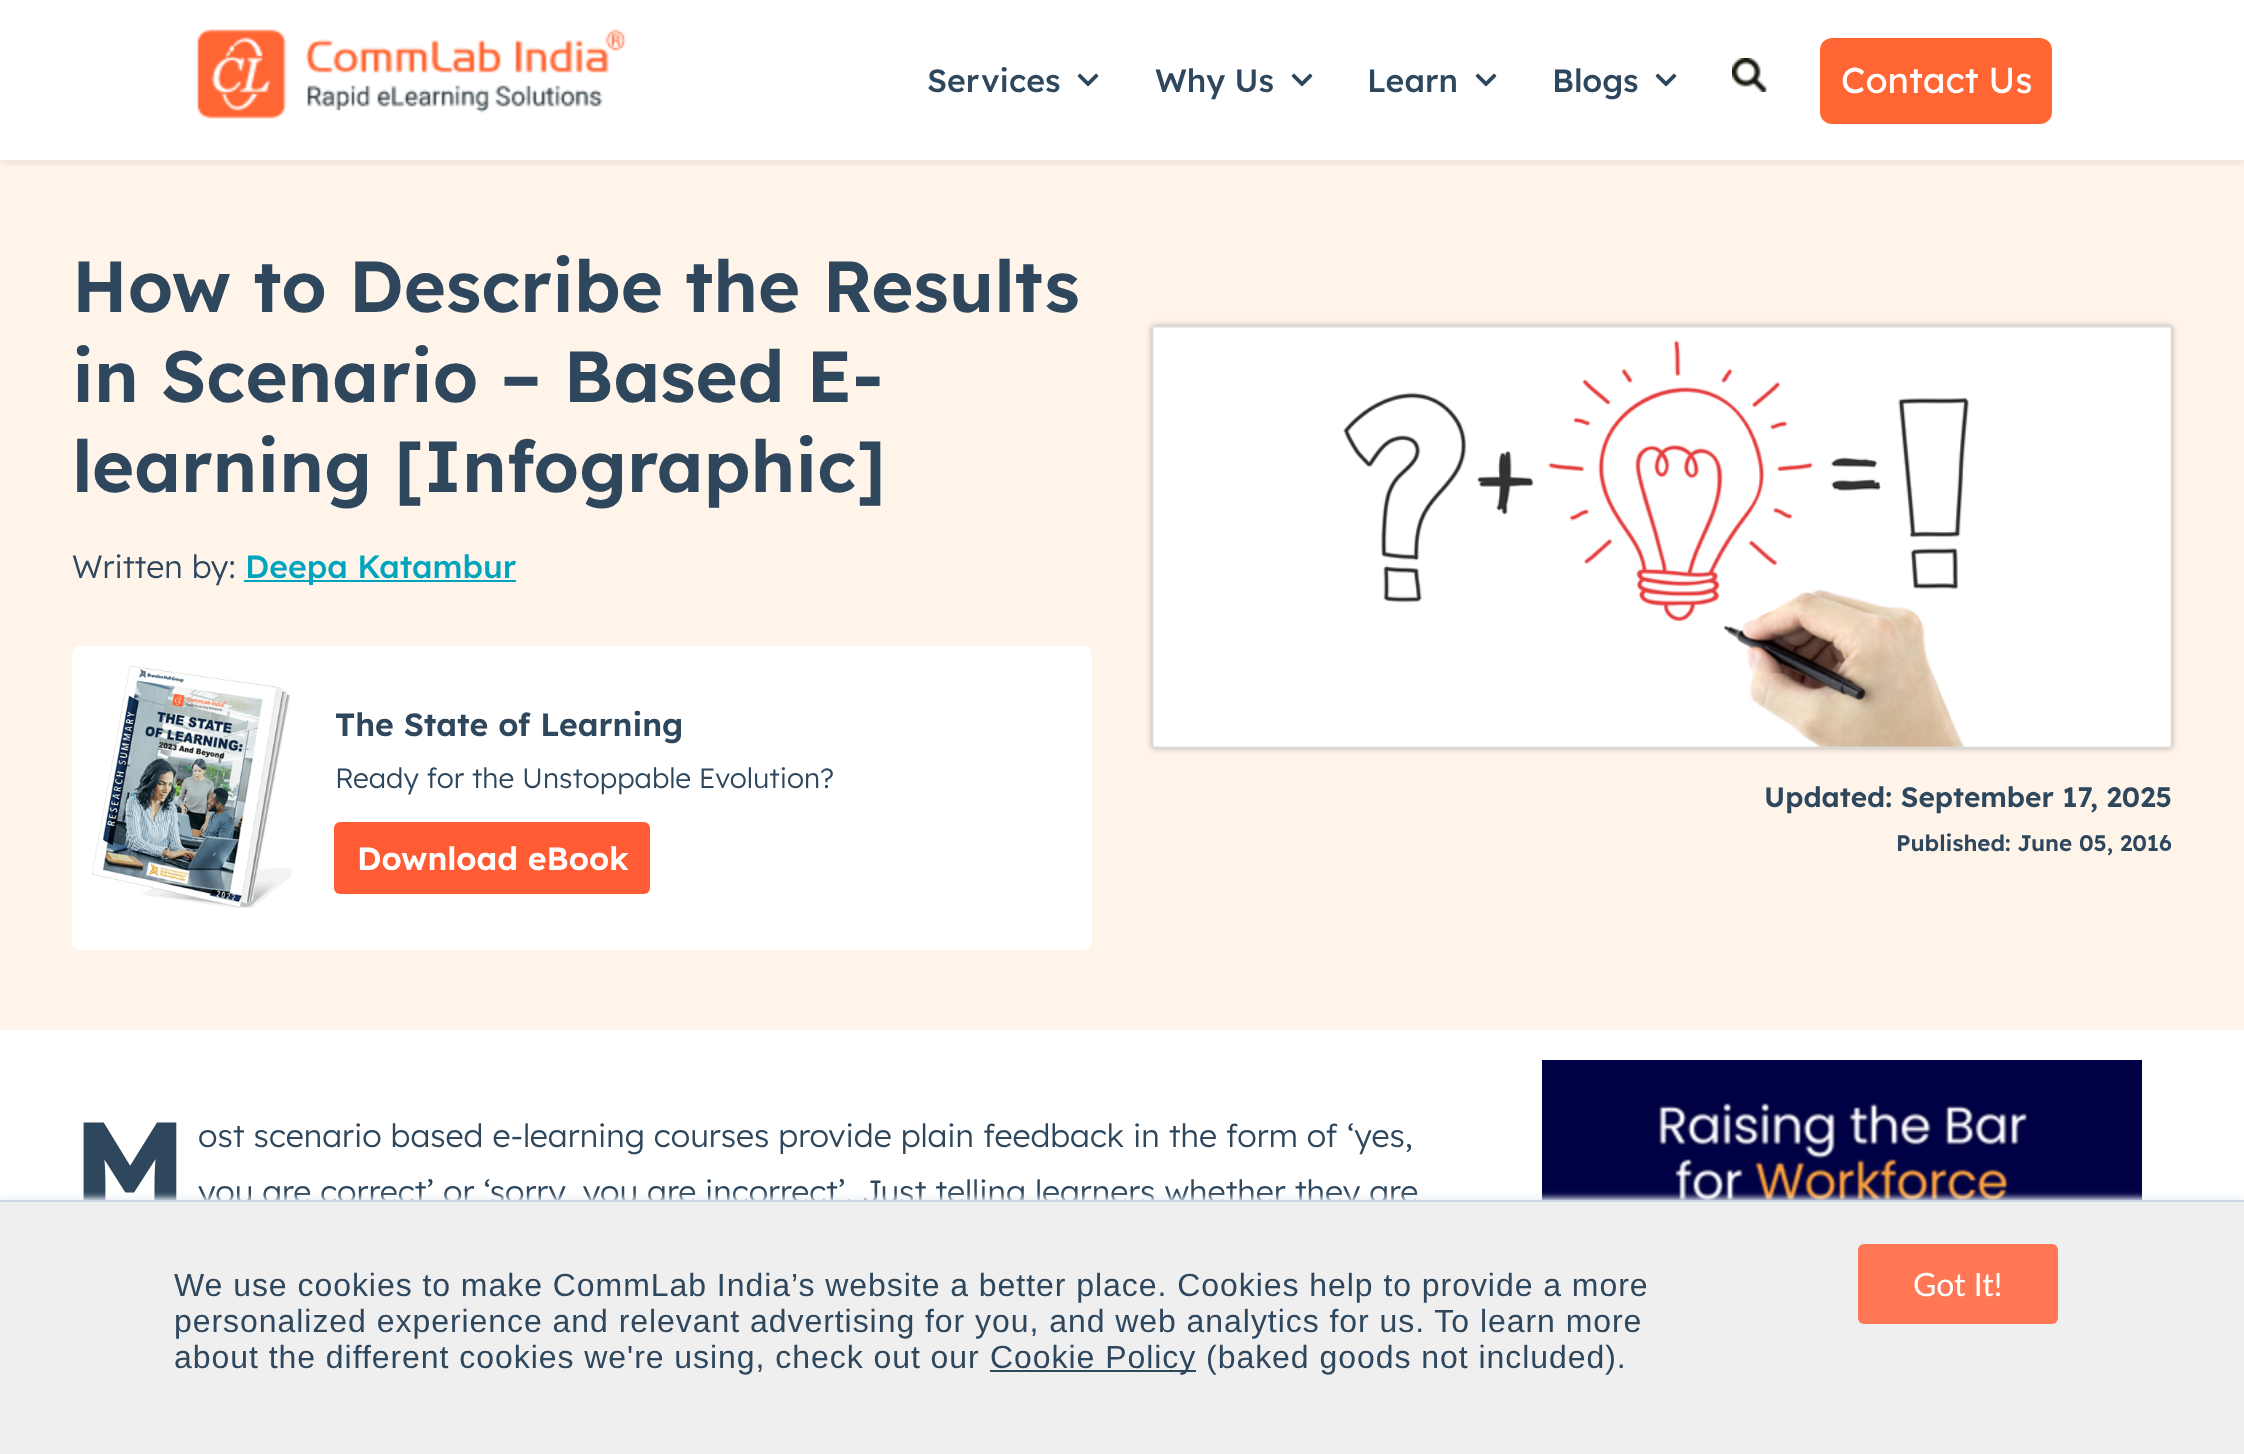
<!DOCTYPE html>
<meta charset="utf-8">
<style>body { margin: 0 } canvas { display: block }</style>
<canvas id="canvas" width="2244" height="1454"></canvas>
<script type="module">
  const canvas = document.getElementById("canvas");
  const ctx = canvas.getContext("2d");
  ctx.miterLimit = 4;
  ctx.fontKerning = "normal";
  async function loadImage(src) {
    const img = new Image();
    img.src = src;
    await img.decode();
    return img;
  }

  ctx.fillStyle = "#ffffff";
  ctx.fillRect(0, 0, 2244, 1454);
  ctx.fillStyle = "#fef4ea";
  ctx.fillRect(0, 160, 2244, 870);
  ctx.save();
  ctx.beginPath();
  ctx.rect(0, 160, 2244, 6);
  ctx.clip();
  ctx.fillStyle = "rgba(0, 0, 0, 0.07)";
  ctx.filter = "blur(4px)";
  ctx.beginPath();
  ctx.rect(0, 4, 2244, 160);
  ctx.fill();
  ctx.filter = "none";
  ctx.restore();
  ctx.drawImage(await loadImage("img1.png"), 197, 29, 430, 90);
  ctx.font = "500 32px Lexend Deca";
  ctx.fillStyle = "#2e475d";
  ctx.fillText("Services", 927, 92);
  ctx.drawImage(await loadImage("img2.png"), 1077, 73, 22, 14);
  ctx.fillText("Why Us", 1155, 92);
  ctx.drawImage(await loadImage("img2.png"), 1291, 73, 22, 14);
  ctx.fillText("Learn", 1367, 92);
  ctx.drawImage(await loadImage("img2.png"), 1475, 73, 22, 14);
  ctx.fillText("Blogs", 1552, 92);
  ctx.drawImage(await loadImage("img2.png"), 1655, 73, 22, 14);
  ctx.drawImage(await loadImage("img3.png"), 1732, 58, 35, 34);
  ctx.fillStyle = "#ff6633";
  ctx.beginPath();
  ctx.roundRect(1820, 38, 232, 86, 12);
  ctx.fill();
  ctx.font = "36px Lexend Deca";
  ctx.fillStyle = "#ffffff";
  ctx.fillText("Contact Us", 1841, 93);
  ctx.font = "600 72px Lexend Deca";
  ctx.fillStyle = "#2e475d";
  ctx.fillText("How to Describe the Results", 72, 312);
  ctx.fillText("in Scenario – Based E-", 72, 402);
  ctx.fillText("learning [Infographic]", 72, 492);
  ctx.font = "300 32px Lexend Deca";
  ctx.fillText("Written by:", 72, 578);
  ctx.fillStyle = "#00a4bd";
  ctx.fillRect(244, 580, 272, 2);
  ctx.font = "500 32px Lexend Deca";
  ctx.fillText("Deepa Katambur", 245, 578);
  ctx.fillStyle = "#ffffff";
  ctx.beginPath();
  ctx.roundRect(72, 646, 1020, 304, 8);
  ctx.fill();
  ctx.drawImage(await loadImage("img4.png"), 92, 666, 200, 242);
  ctx.font = "600 32px Lexend Deca";
  ctx.fillStyle = "#2e475d";
  ctx.fillText("The State of Learning", 335, 736);
  ctx.font = "300 28px Lexend Deca";
  ctx.fillText("Ready for the Unstoppable Evolution?", 335, 788);
  ctx.fillStyle = "#ff5c35";
  ctx.beginPath();
  ctx.roundRect(334, 822, 316, 72, 6);
  ctx.fill();
  ctx.font = "600 32px Lexend Deca";
  ctx.fillStyle = "#ffffff";
  ctx.fillText("Download eBook", 357, 870);
  ctx.fillStyle = "rgba(0, 0, 0, 0.3)";
  ctx.filter = "blur(3px)";
  ctx.beginPath();
  ctx.rect(1152, 326, 1020, 422);
  ctx.fill();
  ctx.filter = "none";
  ctx.drawImage(await loadImage("img5.png"), 1152, 326, 1020, 422);
  ctx.font = "600 28px Lexend Deca";
  ctx.fillStyle = "#2e475d";
  ctx.fillText("Updated: September 17, 2025", 1764, 807);
  ctx.font = "600 22.4px Lexend Deca";
  ctx.fillText("Published: June 05, 2016", 1896, 851);
  ctx.font = "bold 132px Lexend Deca";
  ctx.fillText("M", 72, 1215);
  ctx.font = "300 32px Lexend Deca";
  ctx.fillText("ost scenario based e-learning courses provide plain feedback in the form of ‘yes,", 198, 1147);
  ctx.fillText("you are correct’ or ‘sorry, you are incorrect’. Just telling learners whether they are", 198, 1203);
  ctx.drawImage(await loadImage("img6.png"), 1542, 1060, 600, 140);
  ctx.fillStyle = "#eaf0f6";
  ctx.filter = "blur(3px)";
  ctx.beginPath();
  ctx.rect(0, 1198, 2244, 254);
  ctx.fill();
  ctx.filter = "none";
  ctx.fillStyle = "#efefef";
  ctx.fillRect(0, 1202, 2244, 252);
  ctx.fillStyle = "#cbd6e2";
  ctx.fillRect(0, 1200, 2244, 2);
  ctx.letterSpacing = "0.95px";
  ctx.font = "32px Liberation Sans";
  ctx.fillStyle = "#2e475d";
  ctx.fillText("We use cookies to make CommLab India’s website a better place. Cookies help to provide a more", 174, 1296);
  ctx.fillText("personalized experience and relevant advertising for you, and web analytics for us. To learn more", 174, 1332);
  ctx.fillText("about the different cookies we're using, check out our", 174, 1368);
  ctx.fillStyle = "#2f4858";
  ctx.fillRect(990, 1370, 206, 2);
  ctx.fillStyle = "#2e475d";
  ctx.fillText("Cookie Policy (baked goods not included).", 990, 1368);
  ctx.fillStyle = "#ff7755";
  ctx.beginPath();
  ctx.roundRect(1858, 1244, 200, 80, 6);
  ctx.fill();
  ctx.letterSpacing = "0px";
  ctx.font = "32px Lato";
  ctx.fillStyle = "#ffffff";
  ctx.fillText("Got It!", 1913, 1296);
</script>
